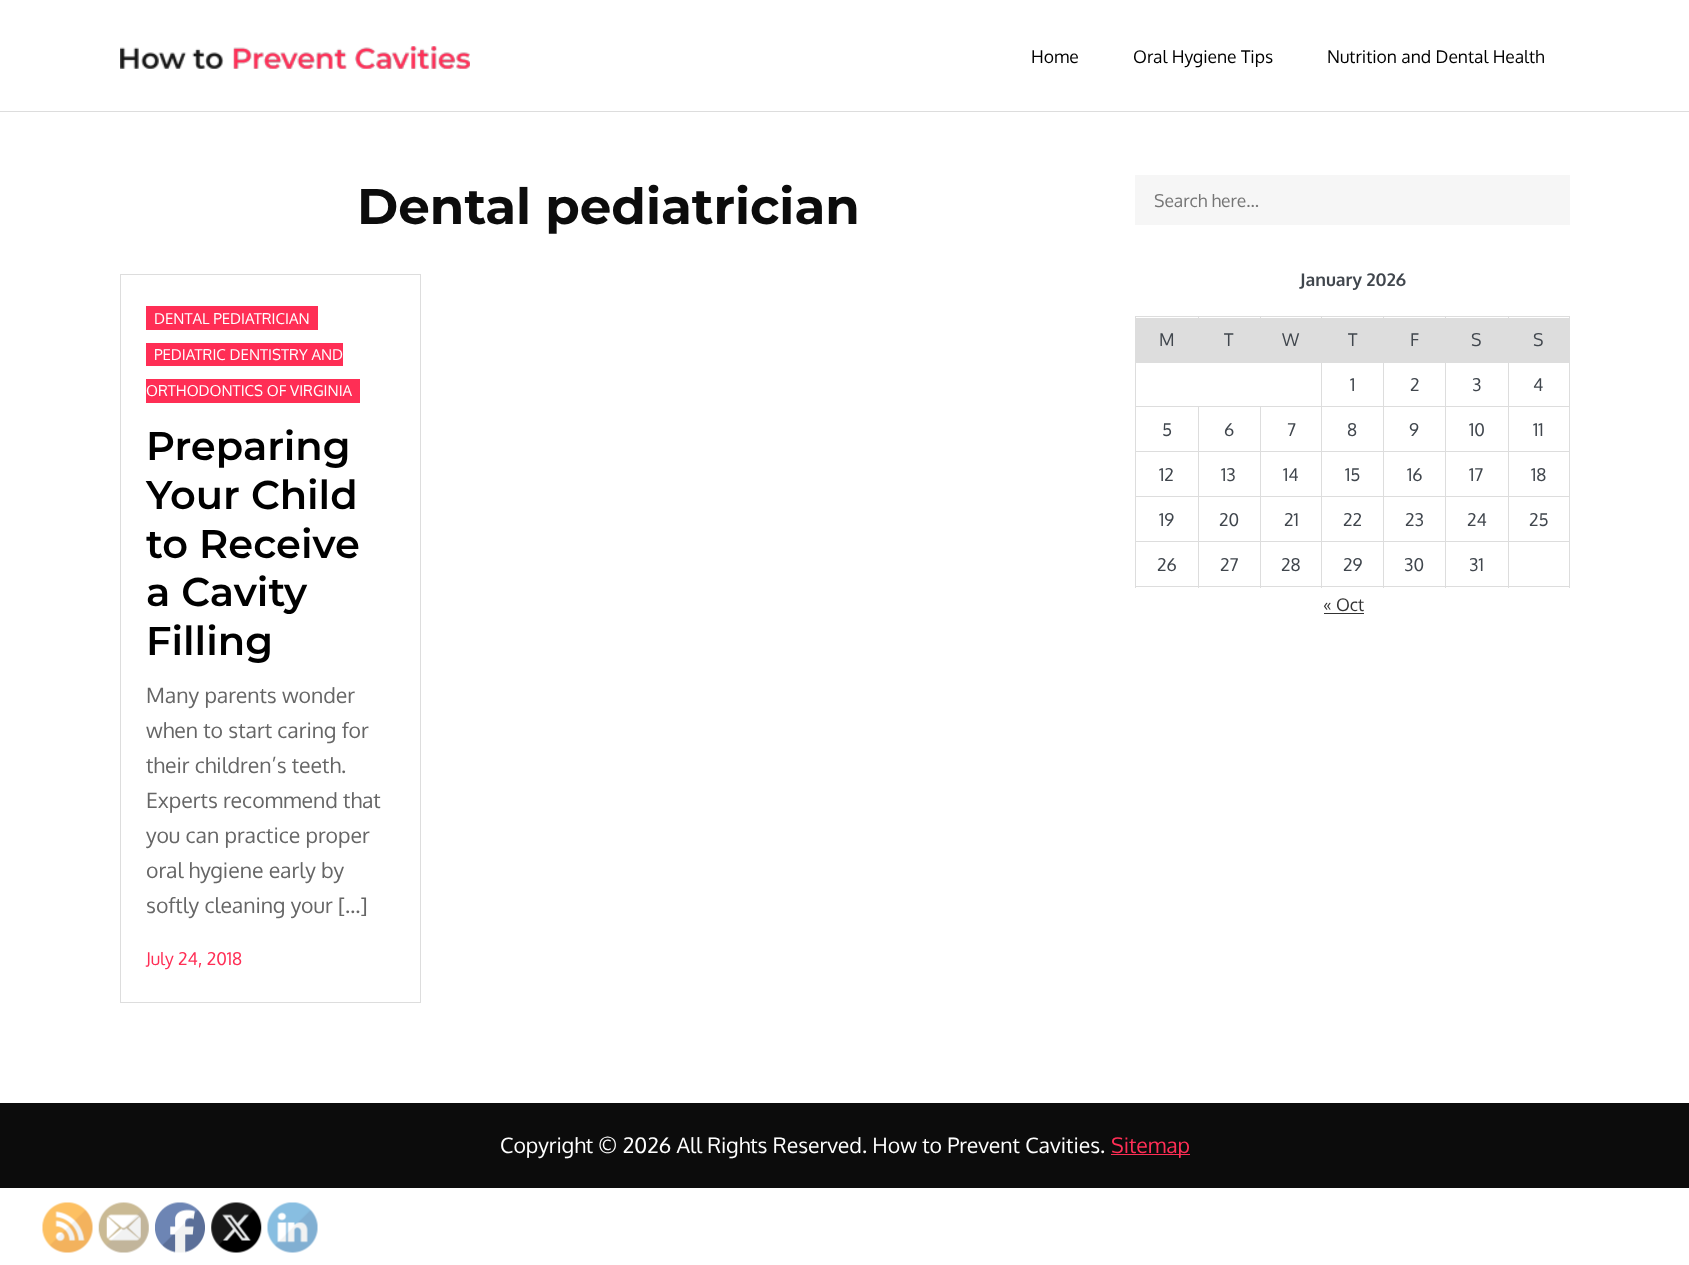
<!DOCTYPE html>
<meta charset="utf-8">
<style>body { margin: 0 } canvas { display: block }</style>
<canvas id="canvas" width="1689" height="1265"></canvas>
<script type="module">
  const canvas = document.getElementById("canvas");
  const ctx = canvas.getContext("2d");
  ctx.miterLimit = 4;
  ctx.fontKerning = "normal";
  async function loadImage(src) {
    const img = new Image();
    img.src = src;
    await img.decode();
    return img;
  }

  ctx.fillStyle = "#ffffff";
  ctx.fillRect(0, 0, 1689, 1265);
  ctx.fillStyle = "#dddddd";
  ctx.fillRect(0, 111, 1689, 1);
  ctx.drawImage(await loadImage("img1.png"), 120, 46, 350, 23);
  ctx.font = "17.5px Oxygen";
  ctx.fillStyle = "#000000";
  ctx.fillText("Home", 1031, 63);
  ctx.fillText("Oral Hygiene Tips", 1133, 63);
  ctx.fillText("Nutrition and Dental Health", 1327, 63);
  ctx.font = "bold 50px Montserrat";
  ctx.fillStyle = "#0c0c0c";
  ctx.fillText("Dental pediatrician", 357, 224);
  ctx.strokeStyle = "#dddddd";
  ctx.strokeRect(120.5, 274.5, 300, 728);
  ctx.fillStyle = "#ff2e55";
  ctx.fillRect(146, 306, 172, 24);
  ctx.font = "15px Oxygen";
  ctx.fillStyle = "#ffffff";
  ctx.fillText("DENTAL PEDIATRICIAN", 154, 324);
  ctx.fillStyle = "#ff2e55";
  ctx.fillRect(146, 343, 197, 23);
  ctx.fillStyle = "#ffffff";
  ctx.fillText("PEDIATRIC DENTISTRY AND", 154, 360);
  ctx.fillStyle = "#ff2e55";
  ctx.fillRect(146, 379, 214, 24);
  ctx.fillStyle = "#ffffff";
  ctx.fillText("ORTHODONTICS OF VIRGINIA", 146, 396);
  ctx.font = "600 40px Montserrat";
  ctx.fillStyle = "#000000";
  ctx.fillText("Preparing", 146, 460);
  ctx.fillText("Your Child", 146, 509);
  ctx.fillText("to Receive", 146, 558);
  ctx.fillText("a Cavity", 146, 606);
  ctx.fillText("Filling", 146, 655);
  ctx.font = "21.25px Oxygen";
  ctx.fillStyle = "#666666";
  ctx.fillText("Many parents wonder", 146, 703);
  ctx.fillText("when to start caring for", 146, 738);
  ctx.fillText("their children’s teeth.", 146, 773);
  ctx.fillText("Experts recommend that", 146, 808);
  ctx.fillText("you can practice proper", 146, 843);
  ctx.fillText("oral hygiene early by", 146, 878);
  ctx.fillText("softly cleaning your […]", 146, 913);
  ctx.font = "17.5px Oxygen";
  ctx.fillStyle = "#ff2e55";
  ctx.fillText("July 24, 2018", 146, 965);
  ctx.fillStyle = "#f6f6f6";
  ctx.fillRect(1135, 175, 435, 50);
  ctx.fillStyle = "#757575";
  ctx.fillText("Search here...", 1154, 207);
  ctx.font = "bold 17.5px Oxygen";
  ctx.fillStyle = "#40464d";
  ctx.fillText("January 2026", 1300, 286);
  ctx.fillStyle = "#dddddd";
  ctx.fillRect(1136, 318, 62, 45);
  ctx.fillRect(1508, 316, 62, 1);
  ctx.fillRect(1509, 318, 60, 45);
  ctx.fillRect(1508, 361, 62, 1);
  ctx.fillRect(1508, 406, 62, 1);
  ctx.fillRect(1508, 451, 62, 1);
  ctx.fillRect(1508, 496, 62, 1);
  ctx.fillRect(1508, 541, 62, 1);
  ctx.fillRect(1569, 541, 1, 47);
  ctx.fillRect(1508, 586, 62, 1);
  ctx.fillRect(1508, 541, 1, 47);
  ctx.fillRect(1445, 541, 64, 1);
  ctx.fillRect(1508, 496, 1, 47);
  ctx.fillRect(1445, 496, 64, 1);
  ctx.fillRect(1508, 451, 1, 47);
  ctx.fillRect(1445, 451, 64, 1);
  ctx.fillRect(1508, 406, 1, 47);
  ctx.fillRect(1445, 406, 64, 1);
  ctx.fillRect(1508, 361, 1, 47);
  ctx.fillRect(1508, 316, 1, 47);
  ctx.fillRect(1445, 316, 64, 1);
  ctx.fillRect(1445, 586, 64, 1);
  ctx.fillRect(1445, 541, 1, 47);
  ctx.fillRect(1383, 541, 63, 1);
  ctx.fillRect(1445, 496, 1, 47);
  ctx.fillRect(1383, 496, 63, 1);
  ctx.fillRect(1445, 451, 1, 47);
  ctx.fillRect(1383, 451, 63, 1);
  ctx.fillRect(1445, 406, 1, 47);
  ctx.fillRect(1383, 406, 63, 1);
  ctx.fillRect(1445, 361, 1, 47);
  ctx.fillRect(1445, 316, 1, 47);
  ctx.fillRect(1383, 316, 63, 1);
  ctx.fillRect(1383, 586, 63, 1);
  ctx.fillRect(1383, 541, 1, 47);
  ctx.fillRect(1321, 541, 63, 1);
  ctx.fillRect(1383, 496, 1, 47);
  ctx.fillRect(1321, 496, 63, 1);
  ctx.fillRect(1383, 451, 1, 47);
  ctx.fillRect(1321, 451, 63, 1);
  ctx.fillRect(1383, 406, 1, 47);
  ctx.fillRect(1321, 406, 63, 1);
  ctx.fillRect(1383, 361, 1, 47);
  ctx.fillRect(1383, 316, 1, 47);
  ctx.fillRect(1321, 316, 63, 1);
  ctx.fillRect(1321, 586, 63, 1);
  ctx.fillRect(1321, 541, 1, 47);
  ctx.fillRect(1260, 541, 63, 1);
  ctx.fillRect(1321, 496, 1, 47);
  ctx.fillRect(1260, 496, 63, 1);
  ctx.fillRect(1321, 451, 1, 47);
  ctx.fillRect(1260, 451, 63, 1);
  ctx.fillRect(1321, 406, 1, 47);
  ctx.fillRect(1260, 406, 63, 1);
  ctx.fillRect(1321, 361, 1, 47);
  ctx.fillRect(1321, 316, 1, 47);
  ctx.fillRect(1260, 316, 63, 1);
  ctx.fillRect(1199, 318, 61, 45);
  ctx.fillRect(1135, 361, 126, 1);
  ctx.fillRect(1260, 316, 1, 47);
  ctx.fillRect(1198, 316, 63, 1);
  ctx.fillRect(1198, 316, 1, 47);
  ctx.fillRect(1135, 316, 64, 1);
  ctx.fillRect(1260, 586, 63, 1);
  ctx.fillRect(1260, 541, 1, 47);
  ctx.fillRect(1198, 541, 63, 1);
  ctx.fillRect(1260, 496, 1, 47);
  ctx.fillRect(1198, 496, 63, 1);
  ctx.fillRect(1260, 451, 1, 47);
  ctx.fillRect(1198, 451, 63, 1);
  ctx.fillRect(1260, 406, 1, 47);
  ctx.fillRect(1198, 406, 63, 1);
  ctx.fillRect(1198, 586, 63, 1);
  ctx.fillRect(1198, 541, 1, 47);
  ctx.fillRect(1135, 541, 64, 1);
  ctx.fillRect(1198, 496, 1, 47);
  ctx.fillRect(1135, 496, 64, 1);
  ctx.fillRect(1198, 451, 1, 47);
  ctx.fillRect(1135, 451, 64, 1);
  ctx.fillRect(1198, 406, 1, 47);
  ctx.fillRect(1135, 406, 64, 1);
  ctx.fillRect(1135, 586, 64, 1);
  ctx.fillRect(1135, 541, 1, 47);
  ctx.fillRect(1135, 496, 1, 47);
  ctx.fillRect(1135, 451, 1, 47);
  ctx.fillRect(1135, 406, 1, 47);
  ctx.fillRect(1135, 361, 1, 47);
  ctx.fillRect(1135, 316, 1, 47);
  ctx.font = "17.5px Oxygen";
  ctx.fillStyle = "#40464d";
  ctx.fillText("M", 1159, 346);
  ctx.fillText("T", 1224, 346);
  ctx.fillStyle = "#dddddd";
  ctx.fillRect(1261, 318, 60, 45);
  ctx.fillStyle = "#40464d";
  ctx.fillText("W", 1282, 346);
  ctx.fillStyle = "#dddddd";
  ctx.fillRect(1322, 318, 61, 45);
  ctx.fillStyle = "#40464d";
  ctx.fillText("T", 1348, 346);
  ctx.fillStyle = "#dddddd";
  ctx.fillRect(1384, 318, 61, 45);
  ctx.fillStyle = "#40464d";
  ctx.fillText("F", 1410, 346);
  ctx.fillStyle = "#dddddd";
  ctx.fillRect(1446, 318, 62, 45);
  ctx.fillStyle = "#40464d";
  ctx.fillText("S", 1471, 346);
  ctx.fillStyle = "#dddddd";
  ctx.fillRect(1569, 496, 1, 47);
  ctx.fillRect(1569, 451, 1, 47);
  ctx.fillRect(1569, 406, 1, 47);
  ctx.fillRect(1569, 361, 1, 47);
  ctx.fillRect(1569, 316, 1, 47);
  ctx.fillStyle = "#40464d";
  ctx.fillText("S", 1533, 346);
  ctx.fillText("1", 1350, 391);
  ctx.fillText("2", 1410, 391);
  ctx.fillText("3", 1472, 391);
  ctx.fillText("4", 1533, 391);
  ctx.fillText("5", 1162, 436);
  ctx.fillText("6", 1224, 436);
  ctx.fillText("7", 1287, 436);
  ctx.fillText("8", 1347, 436);
  ctx.fillText("9", 1409, 436);
  ctx.fillText("10", 1469, 436);
  ctx.fillText("11", 1533, 436);
  ctx.fillText("12", 1159, 481);
  ctx.fillText("13", 1221, 481);
  ctx.fillText("14", 1283, 481);
  ctx.fillText("15", 1345, 481);
  ctx.fillText("16", 1407, 481);
  ctx.fillText("17", 1469, 481);
  ctx.fillText("18", 1531, 481);
  ctx.fillText("19", 1159, 526);
  ctx.fillText("20", 1219, 526);
  ctx.fillText("21", 1284, 526);
  ctx.fillText("22", 1343, 526);
  ctx.fillText("23", 1405, 526);
  ctx.fillText("24", 1467, 526);
  ctx.fillText("25", 1529, 526);
  ctx.fillText("26", 1157, 571);
  ctx.fillText("27", 1220, 571);
  ctx.fillText("28", 1281, 571);
  ctx.fillText("29", 1343, 571);
  ctx.fillText("30", 1404, 571);
  ctx.fillText("31", 1469, 571);
  ctx.fillStyle = "#333333";
  ctx.fillText("« Oct", 1323, 611);
  ctx.fillRect(1324, 613, 40, 1);
  ctx.fillStyle = "#0c0c0c";
  ctx.fillRect(0, 1103, 1689, 85);
  ctx.font = "21.25px Oxygen";
  ctx.fillStyle = "#ffffff";
  ctx.fillText("Copyright © 2026 All Rights Reserved. How to Prevent Cavities.", 500, 1153);
  ctx.fillStyle = "#ff2e55";
  ctx.fillRect(1111, 1154, 79, 1);
  ctx.fillText("Sitemap", 1111, 1153);
  ctx.drawImage(await loadImage("img2.png"), 42, 1202, 51, 51);
  ctx.drawImage(await loadImage("img3.png"), 98, 1202, 51, 51);
  ctx.drawImage(await loadImage("img4.png"), 155, 1202, 50, 51);
  ctx.drawImage(await loadImage("img5.png"), 211, 1202, 51, 51);
  ctx.drawImage(await loadImage("img6.png"), 267, 1202, 51, 51);
</script>
